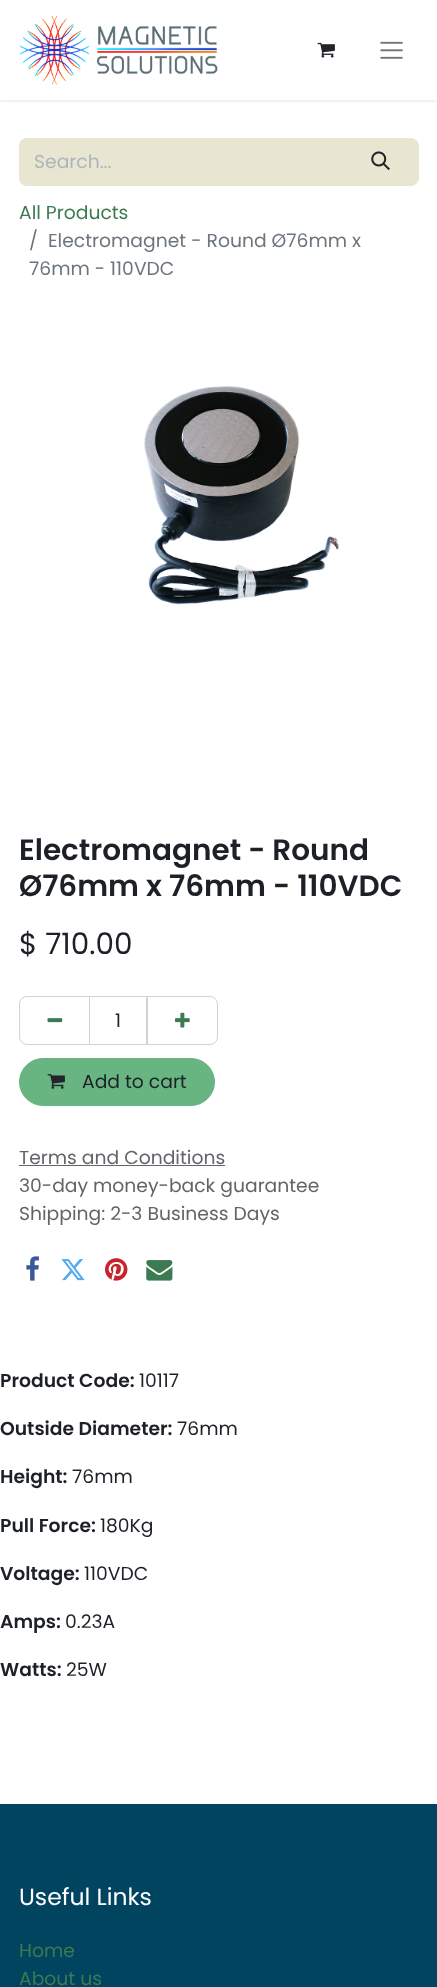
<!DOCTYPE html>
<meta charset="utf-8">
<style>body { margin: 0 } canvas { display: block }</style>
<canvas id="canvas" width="437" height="1987"></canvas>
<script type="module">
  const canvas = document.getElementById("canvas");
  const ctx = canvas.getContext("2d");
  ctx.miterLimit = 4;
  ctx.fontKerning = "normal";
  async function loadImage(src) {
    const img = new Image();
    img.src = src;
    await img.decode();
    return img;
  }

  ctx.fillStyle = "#ffffff";
  ctx.fillRect(0, 0, 437, 1987);
  ctx.save();
  ctx.beginPath();
  ctx.rect(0, 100, 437, 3);
  ctx.clip();
  ctx.fillStyle = "rgba(0, 0, 0, 0.1)";
  ctx.filter = "blur(2px)";
  ctx.beginPath();
  ctx.rect(0, 1, 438, 100);
  ctx.fill();
  ctx.filter = "none";
  ctx.restore();
  ctx.drawImage(await loadImage("img1.png"), 19, 15, 199, 70);
  ctx.drawImage(await loadImage("img2.png"), 317, 42, 18, 16);
  ctx.drawImage(await loadImage("img3.png"), 380, 41, 23, 18);
  ctx.fillStyle = "#e8e6d1";
  ctx.beginPath();
  ctx.roundRect(19, 138, 326, 48, [8, 0, 0, 8]);
  ctx.fill();
  ctx.font = "18.75px Poppins";
  ctx.fillStyle = "#adb5bd";
  ctx.fillText("Search...", 34, 168);
  ctx.fillStyle = "#e8e6d1";
  ctx.beginPath();
  ctx.roundRect(344.5, 138.5, 74, 47, [0, 7.5, 7.5, 0]);
  ctx.fill();
  ctx.strokeStyle = "#e8e6d1";
  ctx.stroke();
  ctx.drawImage(await loadImage("img4.png"), 371, 151, 19, 20);
  ctx.fillStyle = "#3c7b51";
  ctx.fillText("All Products", 19, 219);
  ctx.fillStyle = "#6c757d";
  ctx.fillText("/", 29, 247);
  ctx.fillText("Electromagnet - Round Ø76mm x", 48, 247);
  ctx.fillText("76mm - 110VDC", 29, 275);
  ctx.drawImage(await loadImage("img5.png"), 144, 386, 195, 219);
  ctx.font = "600 29.5px Poppins";
  ctx.fillStyle = "#1d2127";
  ctx.fillText("Electromagnet - Round", 19, 860);
  ctx.fillText("Ø76mm x 76mm - 110VDC", 19, 896);
  ctx.font = "29.5px Poppins";
  ctx.fillText("$ 710.00", 19, 954);
  ctx.strokeStyle = "#ced4da";
  ctx.strokeRect(89.5, 996.5, 58, 48);
  ctx.beginPath();
  ctx.roundRect(19.5, 996.5, 70, 48, [7.5, 0, 0, 7.5]);
  ctx.stroke();
  ctx.drawImage(await loadImage("img6.png"), 47, 1018, 16, 5);
  ctx.font = "18.75px Poppins";
  ctx.fillText("1", 115, 1027);
  ctx.beginPath();
  ctx.roundRect(146.5, 996.5, 71, 48, [0, 7.5, 7.5, 0]);
  ctx.stroke();
  ctx.drawImage(await loadImage("img7.png"), 175, 1012, 15, 16);
  ctx.fillStyle = "#68b581";
  ctx.beginPath();
  ctx.roundRect(19.5, 1058.5, 195, 47, 23.5);
  ctx.fill();
  ctx.strokeStyle = "#68b581";
  ctx.stroke();
  ctx.drawImage(await loadImage("img8.png"), 47, 1074, 18, 15);
  ctx.fillStyle = "#1d2127";
  ctx.fillText("Add to cart", 82, 1088);
  ctx.fillStyle = "#616468";
  ctx.fillText("Terms and Conditions", 19, 1164);
  ctx.fillRect(19, 1165, 206, 1);
  ctx.fillText("30-day money-back guarantee", 19, 1192);
  ctx.fillText("Shipping: 2-3 Business Days", 19, 1220);
  ctx.drawImage(await loadImage("img9.png"), 26, 1256, 13, 25);
  ctx.drawImage(await loadImage("img10.png"), 61, 1259, 24, 22);
  ctx.drawImage(await loadImage("img11.png"), 105, 1258, 23, 23);
  ctx.drawImage(await loadImage("img12.png"), 146, 1260, 27, 21);
  ctx.font = "600 18.75px Poppins";
  ctx.fillStyle = "#1d2127";
  ctx.fillText("Product Code:", 0, 1387);
  ctx.font = "18.75px Poppins";
  ctx.fillText("10117", 139, 1387);
  ctx.font = "600 18.75px Poppins";
  ctx.fillText("Outside Diameter:", 0, 1435);
  ctx.font = "18.75px Poppins";
  ctx.fillText("76mm", 177, 1435);
  ctx.font = "600 18.75px Poppins";
  ctx.fillText("Height:", 0, 1483);
  ctx.font = "18.75px Poppins";
  ctx.fillText("76mm", 72, 1483);
  ctx.font = "600 18.75px Poppins";
  ctx.fillText("Pull Force:", 0, 1532);
  ctx.font = "18.75px Poppins";
  ctx.fillText("180Kg", 100, 1532);
  ctx.font = "600 18.75px Poppins";
  ctx.fillText("Voltage:", 0, 1580);
  ctx.font = "18.75px Poppins";
  ctx.fillText("110VDC", 84, 1580);
  ctx.font = "600 18.75px Poppins";
  ctx.fillText("Amps:", 0, 1628);
  ctx.font = "18.75px Poppins";
  ctx.fillText("0.23A", 65, 1628);
  ctx.font = "600 18.75px Poppins";
  ctx.fillText("Watts:", 0, 1676);
  ctx.font = "18.75px Poppins";
  ctx.fillText("25W", 66, 1676);
  ctx.fillStyle = "#004460";
  ctx.fillRect(0, 1804, 437, 183);
  ctx.font = "23.5px Poppins";
  ctx.fillStyle = "#ffffff";
  ctx.fillText("Useful Links", 19, 1905);
  ctx.font = "18.75px Poppins";
  ctx.fillStyle = "#3c7b51";
  ctx.fillText("Home", 19, 1957);
  ctx.fillText("About us", 19, 1985);
</script>
